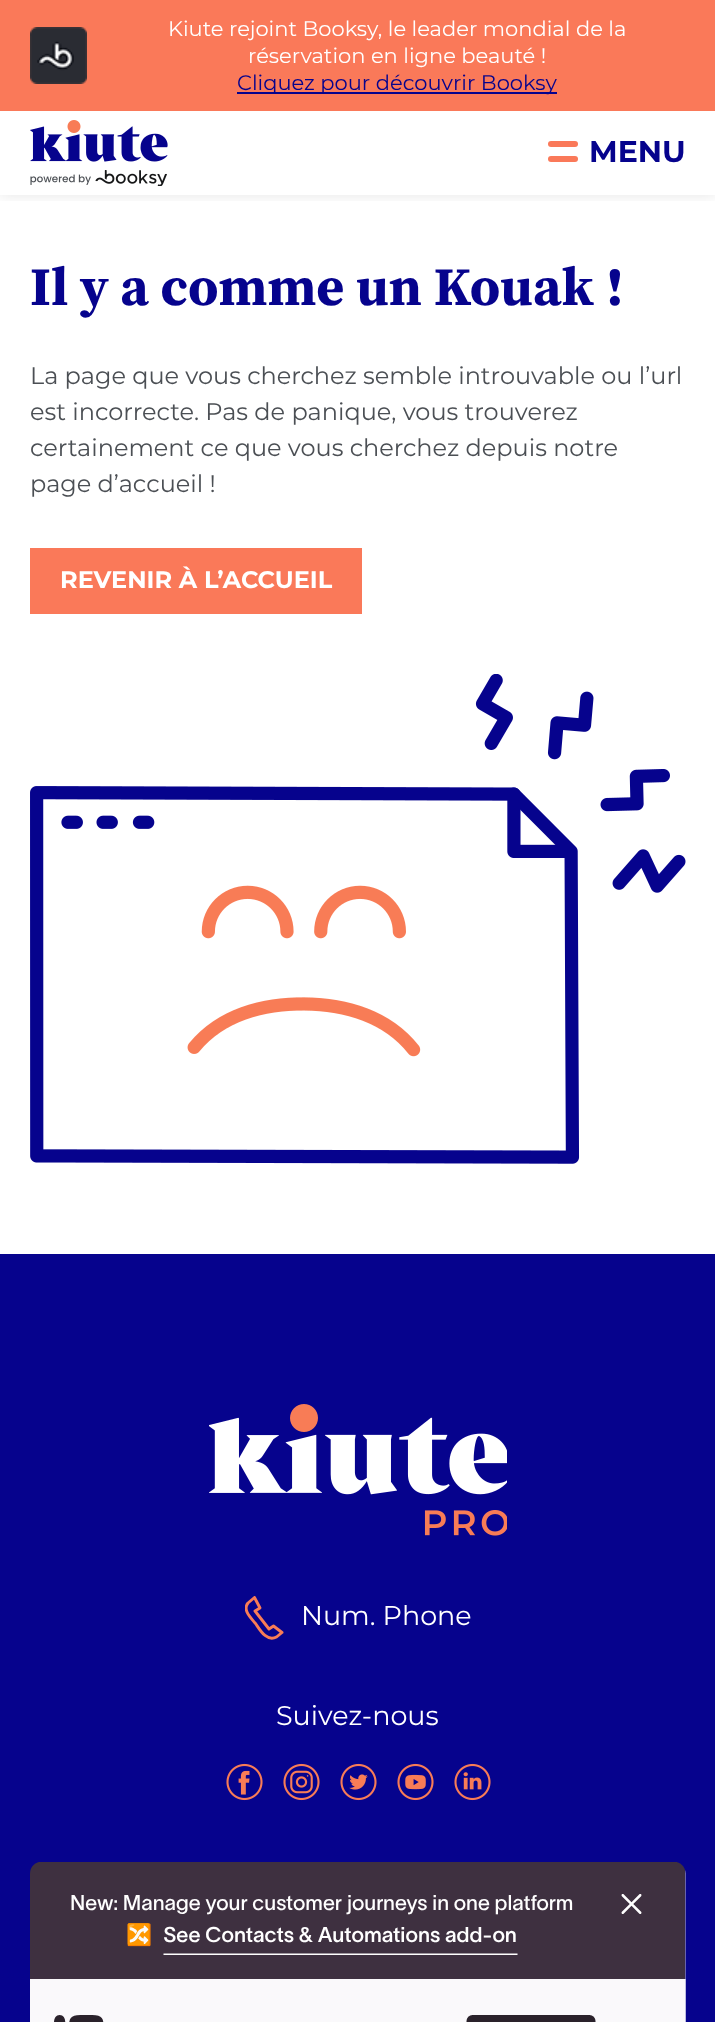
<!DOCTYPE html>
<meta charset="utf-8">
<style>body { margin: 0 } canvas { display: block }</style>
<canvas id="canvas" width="715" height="2022"></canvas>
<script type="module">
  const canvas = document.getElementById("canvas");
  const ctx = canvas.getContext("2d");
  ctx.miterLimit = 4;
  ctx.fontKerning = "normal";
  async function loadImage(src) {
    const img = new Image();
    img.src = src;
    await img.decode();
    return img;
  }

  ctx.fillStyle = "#ffffff";
  ctx.fillRect(0, 0, 715, 2022);
  ctx.save();
  ctx.beginPath();
  ctx.rect(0, 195, 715, 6);
  ctx.clip();
  ctx.fillStyle = "rgba(0, 0, 0, 0.1)";
  ctx.filter = "blur(7.5px)";
  ctx.beginPath();
  ctx.rect(0, 0, 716, 195);
  ctx.fill();
  ctx.filter = "none";
  ctx.restore();
  ctx.fillStyle = "#fa7959";
  ctx.fillRect(0, 0, 715, 111);
  ctx.drawImage(await loadImage("img1.png"), 30, 27, 57, 57);
  ctx.font = "21px Montserrat";
  ctx.fillStyle = "#ffffff";
  ctx.fillText("Kiute rejoint Booksy, le leader mondial de la", 168, 36);
  ctx.fillText("réservation en ligne beauté !", 248, 63);
  ctx.fillStyle = "#06038d";
  ctx.fillRect(237, 92, 320, 2);
  ctx.fillText("Cliquez pour découvrir Booksy", 237, 90);
  ctx.drawImage(await loadImage("img2.png"), 30, 120, 138, 66);
  ctx.fillStyle = "#fa7959";
  ctx.beginPath();
  ctx.roundRect(548, 141, 30, 6, 3);
  ctx.fill();
  ctx.beginPath();
  ctx.roundRect(548, 156, 30, 6, 3);
  ctx.fill();
  ctx.font = "bold 30px Montserrat";
  ctx.fillStyle = "#06038d";
  ctx.fillText("MENU", 589, 162);
  ctx.font = "bold 54px Source Serif Pro";
  ctx.fillText("Il y a comme un Kouak !", 30, 305);
  ctx.font = "24px Montserrat";
  ctx.fillStyle = "#4b4f54";
  ctx.fillText("La page que vous cherchez semble introuvable ou l’url", 30, 384);
  ctx.fillText("est incorrecte. Pas de panique, vous trouverez", 30, 420);
  ctx.fillText("certainement ce que vous cherchez depuis notre", 30, 456);
  ctx.fillText("page d’accueil !", 30, 492);
  ctx.fillStyle = "#fa7959";
  ctx.fillRect(30, 548, 332, 66);
  ctx.font = "bold 24px Montserrat";
  ctx.fillStyle = "#ffffff";
  ctx.fillText("REVENIR À L’ACCUEIL", 60, 588);
  ctx.drawImage(await loadImage("img3.png"), 30, 674, 656, 490);
  ctx.fillStyle = "#06038d";
  ctx.fillRect(0, 1254, 715, 768);
  ctx.drawImage(await loadImage("img4.png"), 209, 1404, 298, 132);
  ctx.save();
  ctx.beginPath();
  ctx.rect(245, 1596, 39, 44);
  ctx.clip();
  ctx.beginPath();
  ctx.moveTo(260, 1608);
  ctx.lineTo(255, 1611);
  ctx.lineTo(269, 1629);
  ctx.lineTo(273.5, 1626);
  ctx.lineTo(282, 1632.5);
  ctx.lineTo(276.5, 1637);
  ctx.bezierCurveTo(266.5, 1642, 260, 1630, 255.5, 1623.5);
  ctx.bezierCurveTo(251.5, 1618.5, 242, 1610, 248, 1603);
  ctx.lineTo(254.5, 1597.5);
  ctx.closePath();
  ctx.strokeStyle = "#f87c56";
  ctx.lineWidth = 2.9;
  ctx.lineCap = "round";
  ctx.lineJoin = "round";
  ctx.stroke();
  ctx.restore();
  ctx.font = "27px Montserrat";
  ctx.fillStyle = "#ffffff";
  ctx.fillText("Num. Phone", 301, 1625);
  ctx.fillText("Suivez-nous", 276, 1725);
  ctx.drawImage(await loadImage("img5.png"), 226, 1763, 37, 38);
  ctx.drawImage(await loadImage("img6.png"), 283, 1763, 37, 38);
  ctx.drawImage(await loadImage("img7.png"), 340, 1763, 37, 38);
  ctx.drawImage(await loadImage("img8.png"), 397, 1763, 37, 38);
  ctx.drawImage(await loadImage("img9.png"), 454, 1763, 37, 38);
  ctx.drawImage(await loadImage("img10.png"), 30, 1862, 656, 160);
</script>
